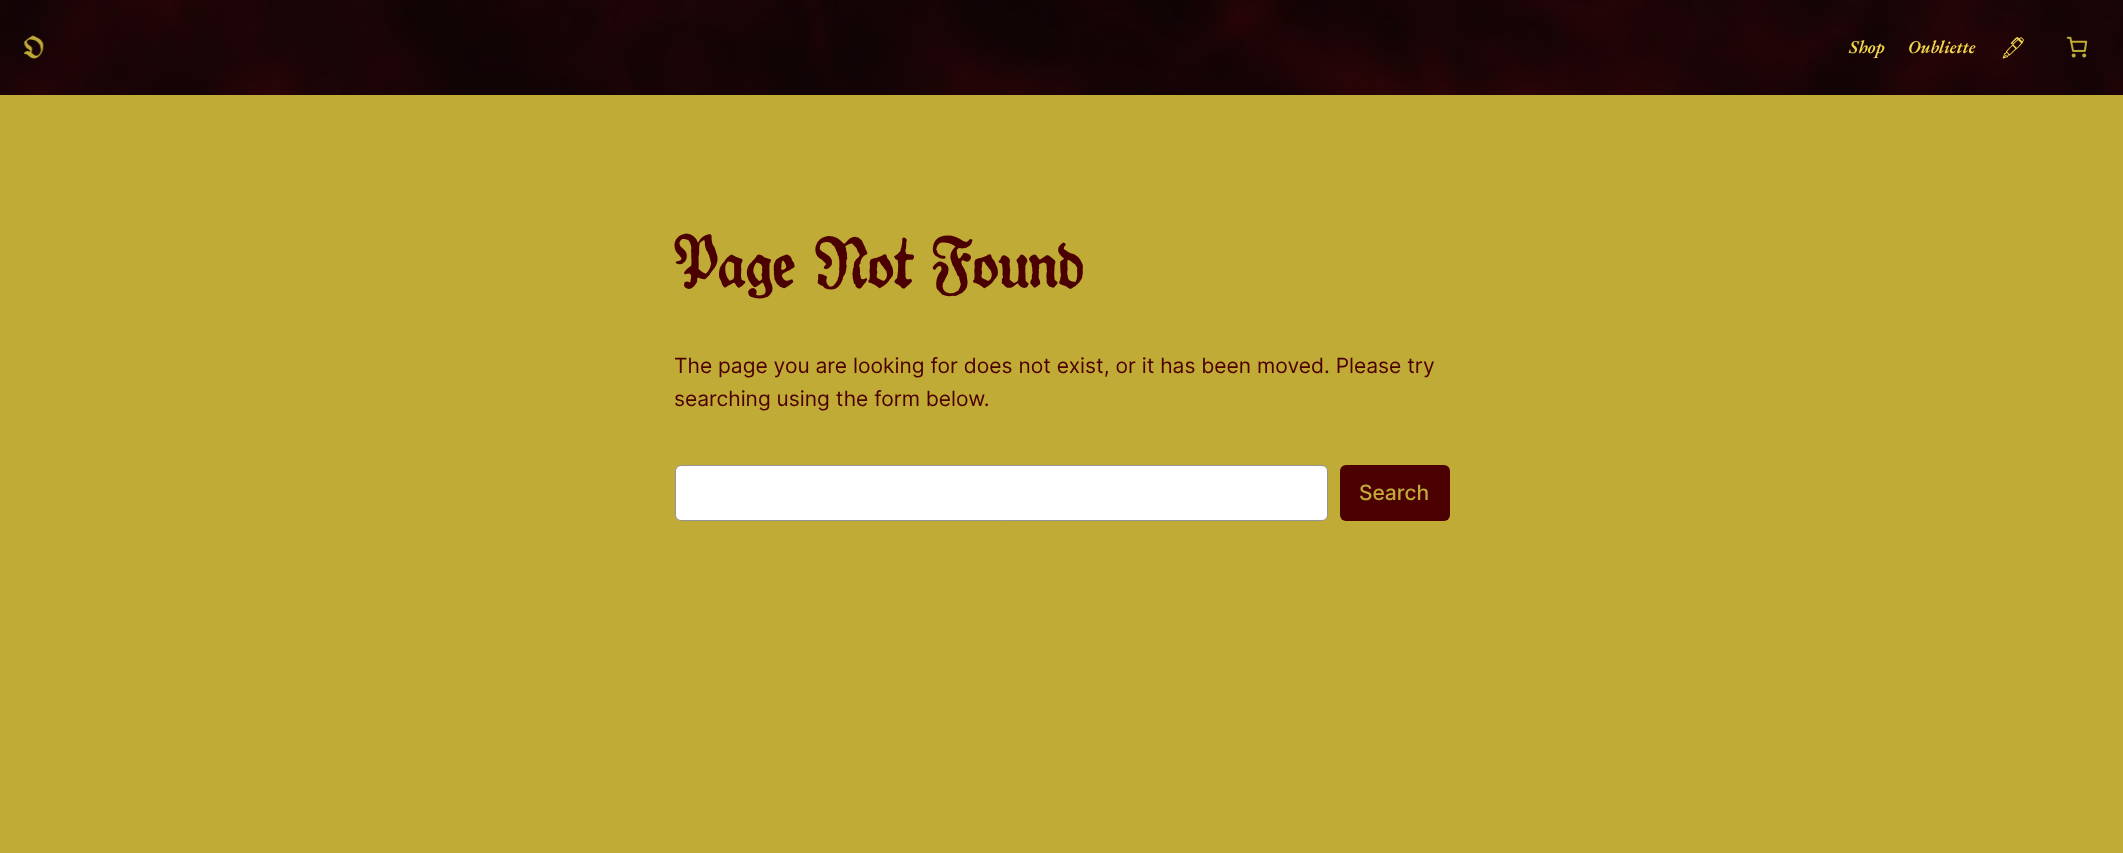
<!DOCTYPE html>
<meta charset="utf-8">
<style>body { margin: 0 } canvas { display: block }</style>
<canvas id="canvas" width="2123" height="853"></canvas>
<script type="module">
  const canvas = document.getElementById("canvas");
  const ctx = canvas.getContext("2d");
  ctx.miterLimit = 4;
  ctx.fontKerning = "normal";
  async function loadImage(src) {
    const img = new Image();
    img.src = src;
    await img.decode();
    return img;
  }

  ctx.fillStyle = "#c1ab37";
  ctx.fillRect(0, 0, 2123, 853);
  ctx.drawImage(await loadImage("img1.png"), 0, 0, 2123, 95);
  ctx.drawImage(await loadImage("img2.png"), 23, 35, 21, 24);
  ctx.font = "italic 600 18px EB Garamond";
  ctx.fillStyle = "#f1d54b";
  ctx.fillText("Shop", 1849, 53);
  ctx.fillText("Oubliette", 1908, 53);
  ctx.font = "500 21px Noto Emoji";
  ctx.fillText("🖋︎", 2000, 55);
  ctx.drawImage(await loadImage("img3.png"), 2066, 36, 22, 22);
  ctx.font = "65.5px 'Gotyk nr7'";
  ctx.fillStyle = "#4b0101";
  ctx.fillText("Page Not Found", 674, 287);
  ctx.font = "21px Inter";
  ctx.fillText("The page you are looking for does not exist, or it has been moved. Please try", 674, 373);
  ctx.fillText("searching using the form below.", 674, 406);
  ctx.fillStyle = "#ffffff";
  ctx.beginPath();
  ctx.roundRect(675.5, 465.5, 652, 55, 5.5);
  ctx.fill();
  ctx.strokeStyle = "#949494";
  ctx.stroke();
  ctx.fillStyle = "#4b0101";
  ctx.beginPath();
  ctx.roundRect(1340, 465, 110, 56, 6);
  ctx.fill();
  ctx.font = "500 21px Inter";
  ctx.fillStyle = "#c1ab37";
  ctx.fillText("Search", 1359, 500);
</script>
